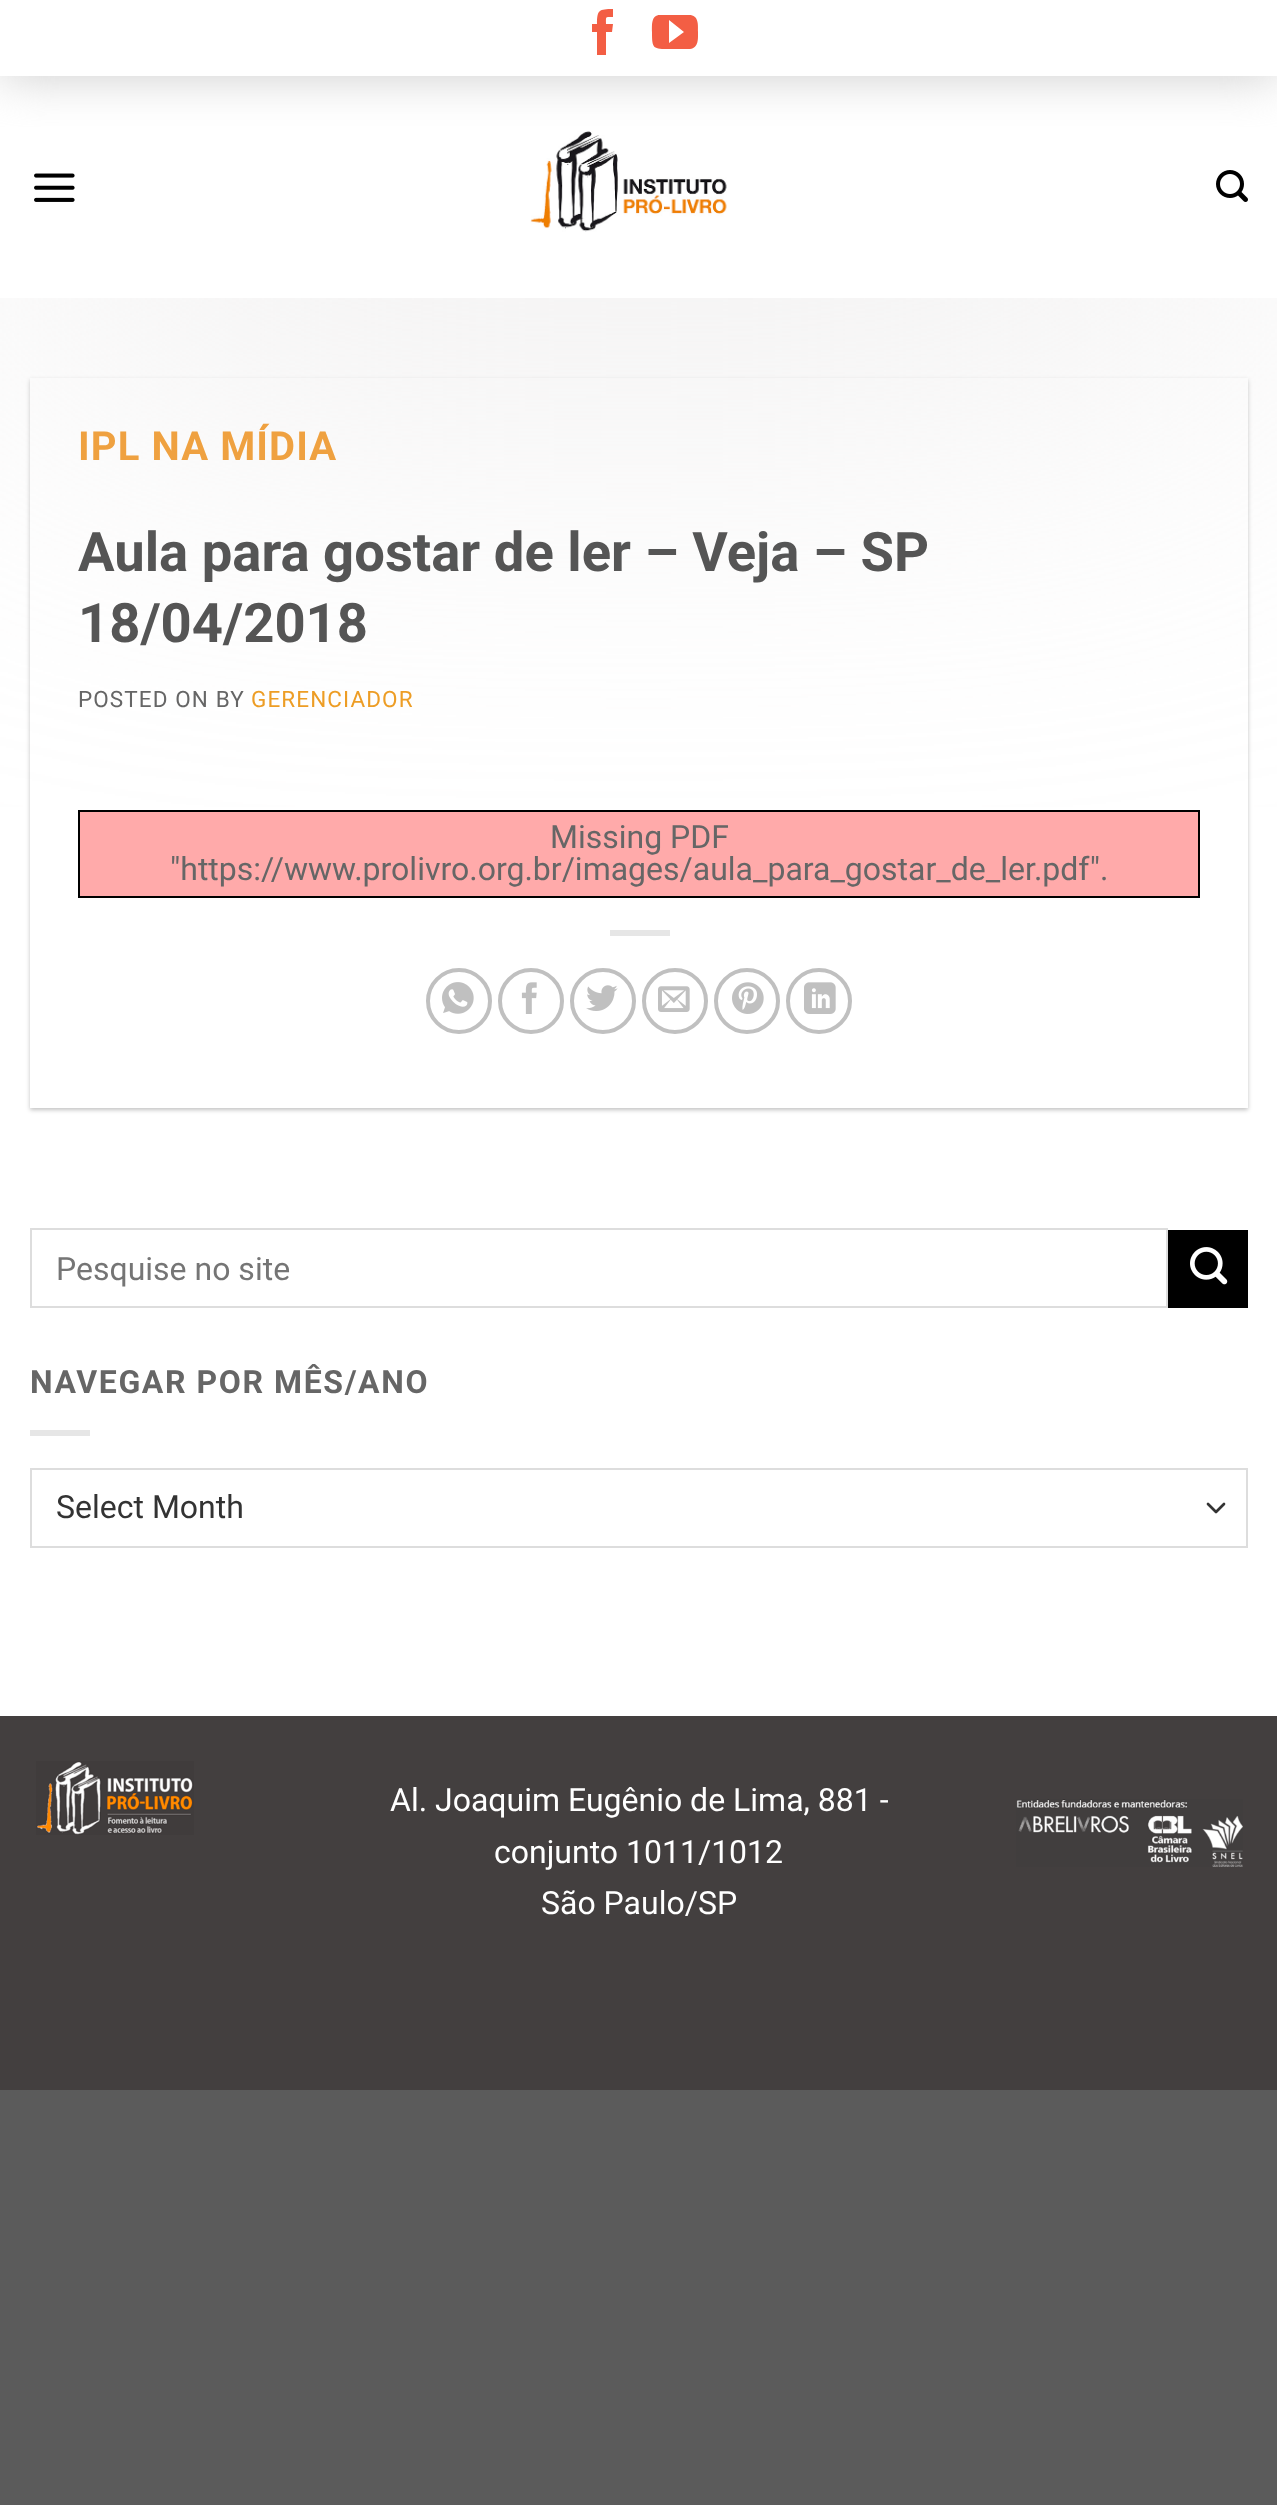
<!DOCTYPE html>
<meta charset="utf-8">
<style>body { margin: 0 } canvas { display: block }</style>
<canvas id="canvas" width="1277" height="2505"></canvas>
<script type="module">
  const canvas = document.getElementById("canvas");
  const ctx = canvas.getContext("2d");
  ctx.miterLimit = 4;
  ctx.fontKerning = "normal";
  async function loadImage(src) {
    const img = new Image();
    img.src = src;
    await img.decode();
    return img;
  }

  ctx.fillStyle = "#5b5b5b";
  ctx.fillRect(0, 0, 1277, 2505);
  ctx.fillStyle = "#ffffff";
  ctx.fillRect(0, 0, 1277, 1716);
  ctx.save();
  ctx.beginPath();
  ctx.moveTo(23, 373);
  ctx.lineTo(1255, 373);
  ctx.lineTo(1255, 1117);
  ctx.lineTo(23, 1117);
  ctx.closePath();
  ctx.moveTo(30, 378);
  ctx.lineTo(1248, 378);
  ctx.lineTo(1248, 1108);
  ctx.lineTo(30, 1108);
  ctx.closePath();
  ctx.clip("evenodd");
  ctx.fillStyle = "rgba(0, 0, 0, 0.24)";
  ctx.filter = "blur(2px)";
  ctx.beginPath();
  ctx.rect(30, 380, 1218, 730);
  ctx.fill();
  ctx.filter = "none";
  ctx.restore();
  ctx.strokeStyle = "#000000";
  ctx.lineWidth = 2;
  ctx.strokeRect(79, 811, 1120, 86);
  ctx.fillStyle = "#ffaaaa";
  ctx.fillRect(80, 812, 1118, 84);
  ctx.fillStyle = "#e6e6e6";
  ctx.fillRect(610, 930, 60, 6);
  ctx.beginPath();
  ctx.arc(459, 1001, 31, 0, Math.PI * 2);
  ctx.strokeStyle = "#c0c0c0";
  ctx.lineWidth = 4;
  ctx.stroke();
  ctx.drawImage(await loadImage("img4.png"), 442, 982, 32, 32);
  ctx.beginPath();
  ctx.arc(531, 1001, 31, 0, Math.PI * 2);
  ctx.stroke();
  ctx.drawImage(await loadImage("img5.png"), 521, 982, 16, 32);
  ctx.beginPath();
  ctx.arc(603, 1001, 31, 0, Math.PI * 2);
  ctx.stroke();
  ctx.drawImage(await loadImage("img6.png"), 586, 985, 32, 26);
  ctx.beginPath();
  ctx.arc(675, 1001, 31, 0, Math.PI * 2);
  ctx.stroke();
  ctx.drawImage(await loadImage("img7.png"), 658, 986, 32, 26);
  ctx.beginPath();
  ctx.arc(747, 1001, 31, 0, Math.PI * 2);
  ctx.stroke();
  ctx.drawImage(await loadImage("img8.png"), 732, 982, 32, 32);
  ctx.beginPath();
  ctx.arc(819, 1001, 31, 0, Math.PI * 2);
  ctx.stroke();
  ctx.drawImage(await loadImage("img9.png"), 804, 982, 32, 32);
  ctx.save();
  ctx.beginPath();
  ctx.rect(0, 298, 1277, 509);
  ctx.clip();
  ctx.fillStyle = "#e7e5e5";
  ctx.filter = "blur(250px)";
  ctx.beginPath();
  ctx.rect(0, 0, 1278, 298);
  ctx.fill();
  ctx.filter = "none";
  ctx.restore();
  ctx.drawImage(await loadImage("img2.png"), 530, 131, 197, 101);
  ctx.save();
  ctx.beginPath();
  ctx.rect(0, 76, 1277, 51);
  ctx.clip();
  ctx.fillStyle = "#cccccc";
  ctx.filter = "blur(25px)";
  ctx.beginPath();
  ctx.rect(0, 0, 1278, 76);
  ctx.fill();
  ctx.filter = "none";
  ctx.restore();
  ctx.fillStyle = "#f35e44";
  ctx.beginPath();
  ctx.moveTo(606, 55);
  ctx.lineTo(597, 55);
  ctx.lineTo(597, 32);
  ctx.lineTo(592, 32);
  ctx.lineTo(592, 24);
  ctx.lineTo(597, 24);
  ctx.bezierCurveTo(597, 10, 599, 9, 613, 9);
  ctx.lineTo(613, 17);
  ctx.bezierCurveTo(605, 17, 606, 16, 606, 24);
  ctx.lineTo(613, 24);
  ctx.lineTo(612, 32);
  ctx.lineTo(606, 32);
  ctx.closePath();
  ctx.fill();
  ctx.beginPath();
  ctx.moveTo(689, 15);
  ctx.lineTo(660, 15);
  ctx.bezierCurveTo(651, 15, 652, 25, 652, 32);
  ctx.bezierCurveTo(652, 49, 653, 49, 670, 49);
  ctx.lineTo(690, 49);
  ctx.bezierCurveTo(699, 48, 698, 38, 698, 32);
  ctx.bezierCurveTo(698, 25, 699, 15, 689, 15);
  ctx.closePath();
  ctx.moveTo(669, 43);
  ctx.lineTo(669, 20);
  ctx.lineTo(684, 32);
  ctx.closePath();
  ctx.fill();
  ctx.drawImage(await loadImage("img1.png"), 34, 173, 41, 29);
  ctx.drawImage(await loadImage("img3.png"), 1216, 170, 32, 32);
  ctx.letterSpacing = "1.1px";
  ctx.font = "bold 40px Roboto";
  ctx.fillStyle = "#efa140";
  ctx.fillText("IPL NA MÍDIA", 78, 460);
  ctx.letterSpacing = "0px";
  ctx.font = "bold 54.4px Roboto";
  ctx.fillStyle = "#555555";
  ctx.fillText("Aula para gostar de ler – Veja – SP", 78, 571);
  ctx.fillText("18/04/2018", 78, 642);
  ctx.letterSpacing = "1.1px";
  ctx.font = "22.5px Roboto";
  ctx.fillStyle = "#666666";
  ctx.fillText("POSTED ON BY", 78, 707);
  ctx.fillStyle = "#ed9d25";
  ctx.fillText("GERENCIADOR", 251, 707);
  ctx.letterSpacing = "0px";
  ctx.font = "32px Roboto";
  ctx.fillStyle = "#666666";
  ctx.fillText("Missing PDF", 550, 848);
  ctx.fillText("\"https://www.prolivro.org.br/images/aula_para_gostar_de_ler.pdf\".", 170, 880);
  ctx.strokeStyle = "#dddddd";
  ctx.lineWidth = 2;
  ctx.strokeRect(31, 1229, 1136, 78);
  ctx.fillStyle = "#757575";
  ctx.fillText("Pesquise no site", 56, 1280);
  ctx.fillStyle = "#000000";
  ctx.fillRect(1168, 1230, 80, 78);
  ctx.drawImage(await loadImage("img10.png"), 1190, 1247, 38, 38);
  ctx.letterSpacing = "1.6px";
  ctx.font = "bold 32px Roboto";
  ctx.fillStyle = "#666666";
  ctx.fillText("NAVEGAR POR MÊS/ANO", 30, 1393);
  ctx.fillStyle = "#e6e6e6";
  ctx.fillRect(30, 1430, 60, 6);
  ctx.beginPath();
  ctx.moveTo(1208, 1504);
  ctx.lineTo(1216, 1512);
  ctx.lineTo(1224, 1504);
  ctx.strokeStyle = "#333333";
  ctx.lineWidth = 2.7;
  ctx.lineCap = "round";
  ctx.lineJoin = "round";
  ctx.stroke();
  ctx.strokeStyle = "#dddddd";
  ctx.lineWidth = 2;
  ctx.lineJoin = "miter";
  ctx.strokeRect(31, 1469, 1216, 78);
  ctx.letterSpacing = "0px";
  ctx.font = "32px Roboto";
  ctx.fillStyle = "#333333";
  ctx.fillText("Select Month", 56, 1518);
  ctx.fillStyle = "#433f3f";
  ctx.fillRect(0, 1716, 1277, 374);
  ctx.drawImage(await loadImage("img11.png"), 36, 1761, 158, 74);
  ctx.fillStyle = "#ffffff";
  ctx.fillText("Al. Joaquim Eugênio de Lima, 881 -", 390, 1811);
  ctx.fillText("conjunto 1011/1012", 494, 1863);
  ctx.fillText("São Paulo/SP", 541, 1914);
  ctx.drawImage(await loadImage("img12.png"), 1016, 1799, 227, 68);
</script>
